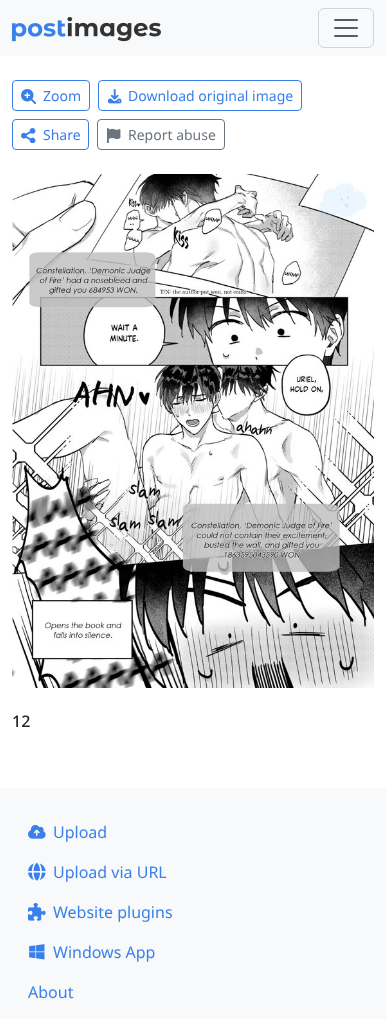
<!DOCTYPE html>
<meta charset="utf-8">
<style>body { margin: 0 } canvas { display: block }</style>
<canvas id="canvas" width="386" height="1019"></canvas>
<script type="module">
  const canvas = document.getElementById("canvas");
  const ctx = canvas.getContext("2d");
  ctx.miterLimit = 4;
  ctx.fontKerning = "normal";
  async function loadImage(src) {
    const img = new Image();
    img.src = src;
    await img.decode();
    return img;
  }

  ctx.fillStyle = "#ffffff";
  ctx.fillRect(0, 0, 386, 1019);
  ctx.fillStyle = "#f8f9fa";
  ctx.fillRect(0, 0, 386, 56);
  ctx.drawImage(await loadImage("img1.png"), 12, 17, 149, 25);
  ctx.beginPath();
  ctx.roundRect(318.5, 8.5, 55, 39, 5.5);
  ctx.strokeStyle = "#d3d4d5";
  ctx.stroke();
  ctx.drawImage(await loadImage("img2.png"), 334, 19, 24, 18);
  ctx.beginPath();
  ctx.roundRect(12.5, 80.5, 77, 30, 3.5);
  ctx.strokeStyle = "#3a80ea";
  ctx.stroke();
  ctx.drawImage(await loadImage("img3.png"), 21, 89, 15, 15);
  ctx.font = "14px Noto Sans";
  ctx.fillStyle = "#3a80ea";
  ctx.fillText("Zoom", 43, 101);
  ctx.beginPath();
  ctx.roundRect(98.5, 80.5, 203, 30, 3.5);
  ctx.stroke();
  ctx.drawImage(await loadImage("img4.png"), 107, 89, 15, 15);
  ctx.fillText("Download original image", 128, 101);
  ctx.beginPath();
  ctx.roundRect(12.5, 119.5, 76, 30, 3.5);
  ctx.stroke();
  ctx.drawImage(await loadImage("img5.png"), 21, 128, 15, 15);
  ctx.fillText("Share", 43, 140);
  ctx.beginPath();
  ctx.roundRect(97.5, 119.5, 127, 30, 3.5);
  ctx.strokeStyle = "#6c757d";
  ctx.stroke();
  ctx.drawImage(await loadImage("img6.png"), 106, 128, 15, 15);
  ctx.fillStyle = "#6c757d";
  ctx.fillText("Report abuse", 128, 140);
  ctx.drawImage(await loadImage("img7.png"), 12, 174, 362, 514);
  ctx.font = "500 16px Noto Sans";
  ctx.fillStyle = "#212529";
  ctx.fillText("12", 12, 727);
  ctx.fillStyle = "#f8f9fa";
  ctx.fillRect(0, 788, 386, 231);
  ctx.drawImage(await loadImage("img8.png"), 28, 825, 18, 14);
  ctx.font = "16px Noto Sans";
  ctx.fillStyle = "#3a80ea";
  ctx.fillText("Upload", 53, 838);
  ctx.drawImage(await loadImage("img9.png"), 28, 863, 18, 18);
  ctx.fillText("Upload via URL", 53, 878);
  ctx.drawImage(await loadImage("img10.png"), 28, 903, 18, 18);
  ctx.fillText("Website plugins", 53, 918);
  ctx.drawImage(await loadImage("img11.png"), 29, 944, 16, 16);
  ctx.fillText("Windows App", 53, 958);
  ctx.fillText("About", 28, 998);
</script>
